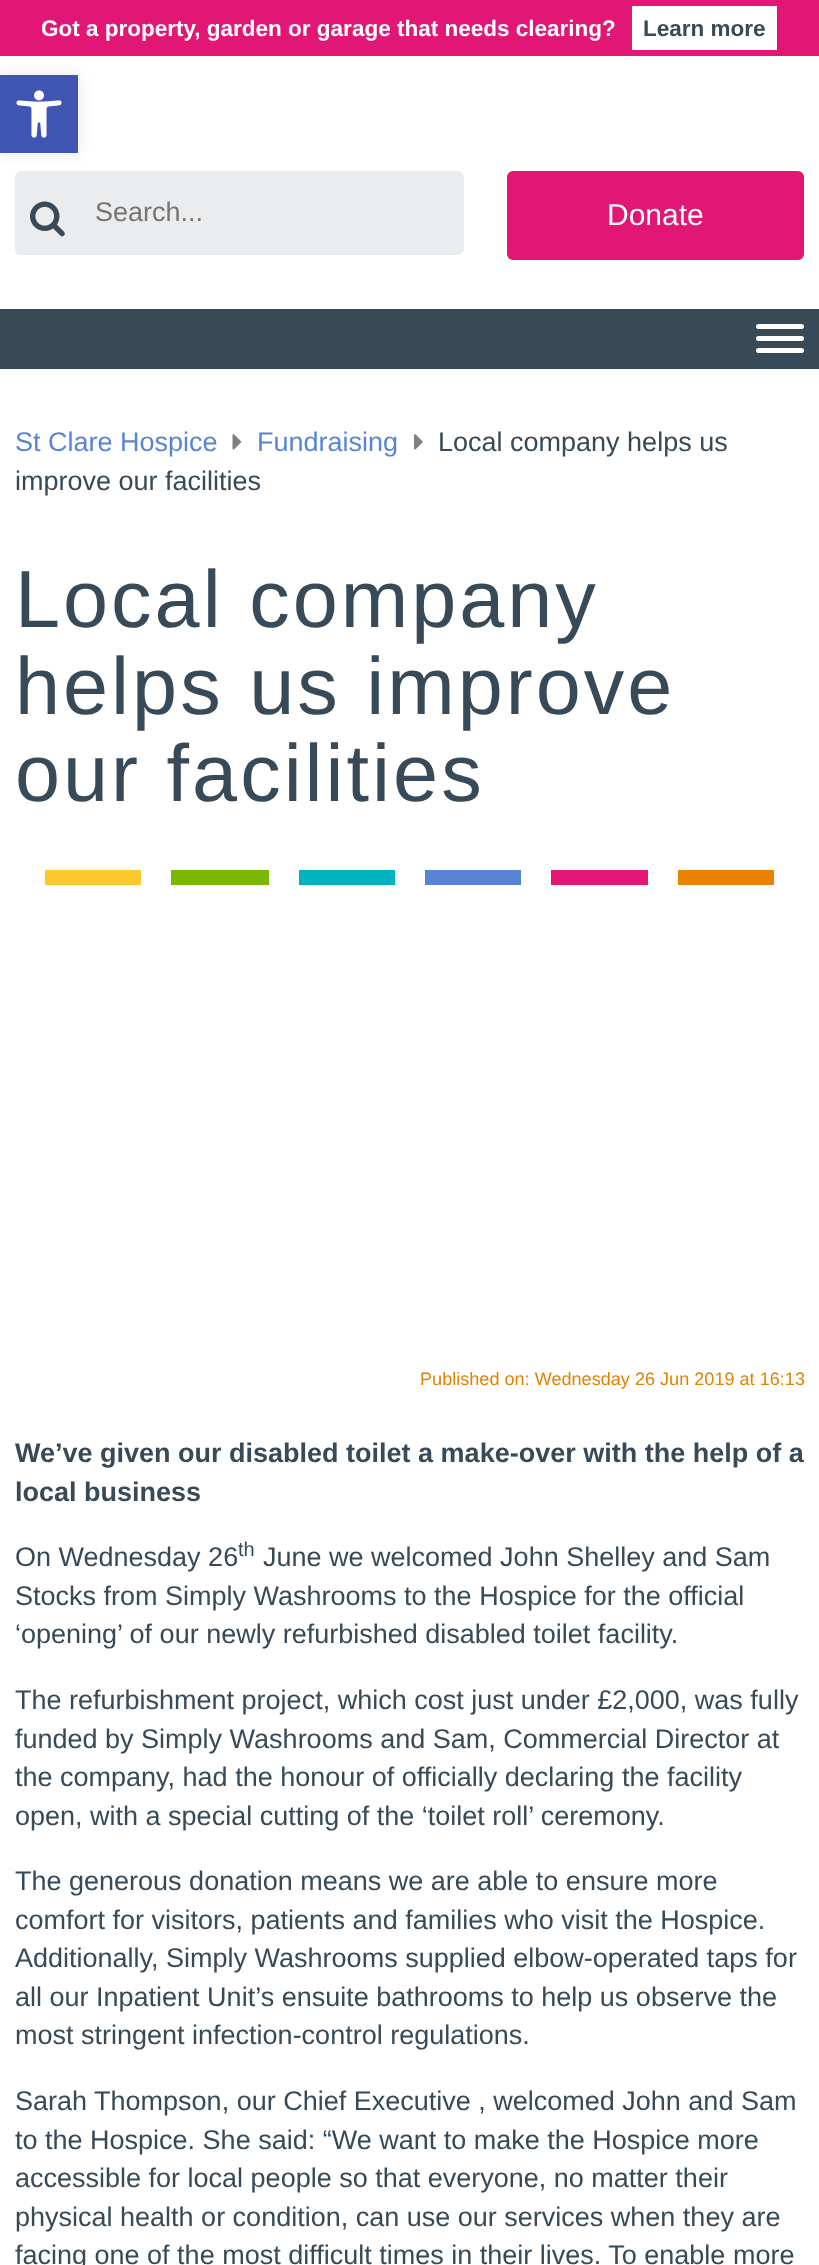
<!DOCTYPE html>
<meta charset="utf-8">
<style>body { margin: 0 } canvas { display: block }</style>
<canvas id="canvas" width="819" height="2265"></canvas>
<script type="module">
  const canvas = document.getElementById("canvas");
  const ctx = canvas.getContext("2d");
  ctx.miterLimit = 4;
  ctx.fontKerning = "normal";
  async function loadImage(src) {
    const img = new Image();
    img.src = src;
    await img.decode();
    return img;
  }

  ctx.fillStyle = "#ffffff";
  ctx.fillRect(0, 0, 819, 2265);
  ctx.fillStyle = "#e11675";
  ctx.fillRect(0, 0, 819, 56);
  ctx.font = "bold 22.5px Liberation Sans";
  ctx.fillStyle = "#ffffff";
  ctx.fillText("Got a property, garden or garage that needs clearing?", 41, 36);
  ctx.fillRect(632, 6, 145, 44);
  ctx.fillStyle = "#384a58";
  ctx.fillText("Learn more", 643, 36);
  ctx.fillStyle = "#ebecee";
  ctx.beginPath();
  ctx.roundRect(15, 171, 449, 84, 6);
  ctx.fill();
  ctx.fillStyle = "rgba(0, 0, 0, 0.1)";
  ctx.filter = "blur(7.5px)";
  ctx.beginPath();
  ctx.rect(0, 75, 78, 78);
  ctx.fill();
  ctx.filter = "none";
  ctx.fillStyle = "#4054b2";
  ctx.fillRect(0, 75, 78, 78);
  ctx.drawImage(await loadImage("img1.png"), 16, 90, 46, 48);
  ctx.drawImage(await loadImage("img2.png"), 30, 201, 35, 36);
  ctx.font = "27px Liberation Sans";
  ctx.fillStyle = "#757575";
  ctx.fillText("Search...", 95, 221);
  ctx.fillStyle = "#e11675";
  ctx.beginPath();
  ctx.roundRect(507, 171, 297, 89, 6);
  ctx.fill();
  ctx.font = "30px Liberation Sans";
  ctx.fillStyle = "#ffffff";
  ctx.fillText("Donate", 607, 225);
  ctx.fillStyle = "#384a58";
  ctx.fillRect(0, 309, 819, 60);
  ctx.fillStyle = "#ffffff";
  ctx.beginPath();
  ctx.roundRect(756, 324, 48, 5, 2.5);
  ctx.fill();
  ctx.beginPath();
  ctx.roundRect(756, 336, 48, 5, 2.5);
  ctx.fill();
  ctx.beginPath();
  ctx.roundRect(756, 348, 48, 5, 2.5);
  ctx.fill();
  ctx.font = "27px Liberation Sans";
  ctx.fillStyle = "#5984d6";
  ctx.fillText("St Clare Hospice", 15, 451);
  ctx.drawImage(await loadImage("img3.png"), 232, 434, 10, 16);
  ctx.fillText("Fundraising", 257, 451);
  ctx.drawImage(await loadImage("img4.png"), 414, 434, 9, 16);
  ctx.fillStyle = "#384a58";
  ctx.fillText("Local company helps us", 438, 451);
  ctx.fillText("improve our facilities", 15, 490);
  ctx.letterSpacing = "3px";
  ctx.font = "81px Liberation Sans";
  ctx.fillText("Local company", 15, 627);
  ctx.fillText("helps us improve", 15, 714);
  ctx.fillText("our facilities", 15, 801);
  ctx.fillStyle = "#fdc72e";
  ctx.fillRect(45, 870, 96, 15);
  ctx.fillStyle = "#79b700";
  ctx.fillRect(171, 870, 98, 15);
  ctx.fillStyle = "#00b2bd";
  ctx.fillRect(299, 870, 96, 15);
  ctx.fillStyle = "#5984d6";
  ctx.fillRect(425, 870, 96, 15);
  ctx.fillStyle = "#e11675";
  ctx.fillRect(551, 870, 97, 15);
  ctx.fillStyle = "#e88200";
  ctx.fillRect(678, 870, 96, 15);
  ctx.letterSpacing = "0px";
  ctx.font = "18.1px Liberation Sans";
  ctx.fillStyle = "#df8300";
  ctx.fillText("Published on: Wednesday 26 Jun 2019 at 16:13", 420, 1385);
  ctx.font = "bold 27px Liberation Sans";
  ctx.fillStyle = "#384a58";
  ctx.fillText("We’ve given our disabled toilet a make-over with the help of a", 15, 1462);
  ctx.fillText("local business", 15, 1501);
  ctx.font = "27px Liberation Sans";
  ctx.fillText("On Wednesday 26", 15, 1566);
  ctx.font = "20px Liberation Sans";
  ctx.fillText("th", 238, 1556);
  ctx.font = "27px Liberation Sans";
  ctx.fillText("June we welcomed John Shelley and Sam", 263, 1566);
  ctx.fillText("Stocks from Simply Washrooms to the Hospice for the official", 15, 1605);
  ctx.fillText("‘opening’ of our newly refurbished disabled toilet facility.", 15, 1643);
  ctx.fillText("The refurbishment project, which cost just under £2,000, was fully", 15, 1709);
  ctx.fillText("funded by Simply Washrooms and Sam, Commercial Director at", 15, 1748);
  ctx.fillText("the company, had the honour of officially declaring the facility", 15, 1786);
  ctx.fillText("open, with a special cutting of the ‘toilet roll’ ceremony.", 15, 1825);
  ctx.fillText("The generous donation means we are able to ensure more", 15, 1890);
  ctx.fillText("comfort for visitors, patients and families who visit the Hospice.", 15, 1929);
  ctx.fillText("Additionally, Simply Washrooms supplied elbow-operated taps for", 15, 1967);
  ctx.fillText("all our Inpatient Unit’s ensuite bathrooms to help us observe the", 15, 2006);
  ctx.fillText("most stringent infection-control regulations.", 15, 2044);
  ctx.fillText("Sarah Thompson, our Chief Executive , welcomed John and Sam", 15, 2110);
  ctx.fillText("to the Hospice. She said: “We want to make the Hospice more", 15, 2149);
  ctx.fillText("accessible for local people so that everyone, no matter their", 15, 2187);
  ctx.fillText("physical health or condition, can use our services when they are", 15, 2226);
  ctx.fillText("facing one of the most difficult times in their lives. To enable more", 15, 2264);
</script>
